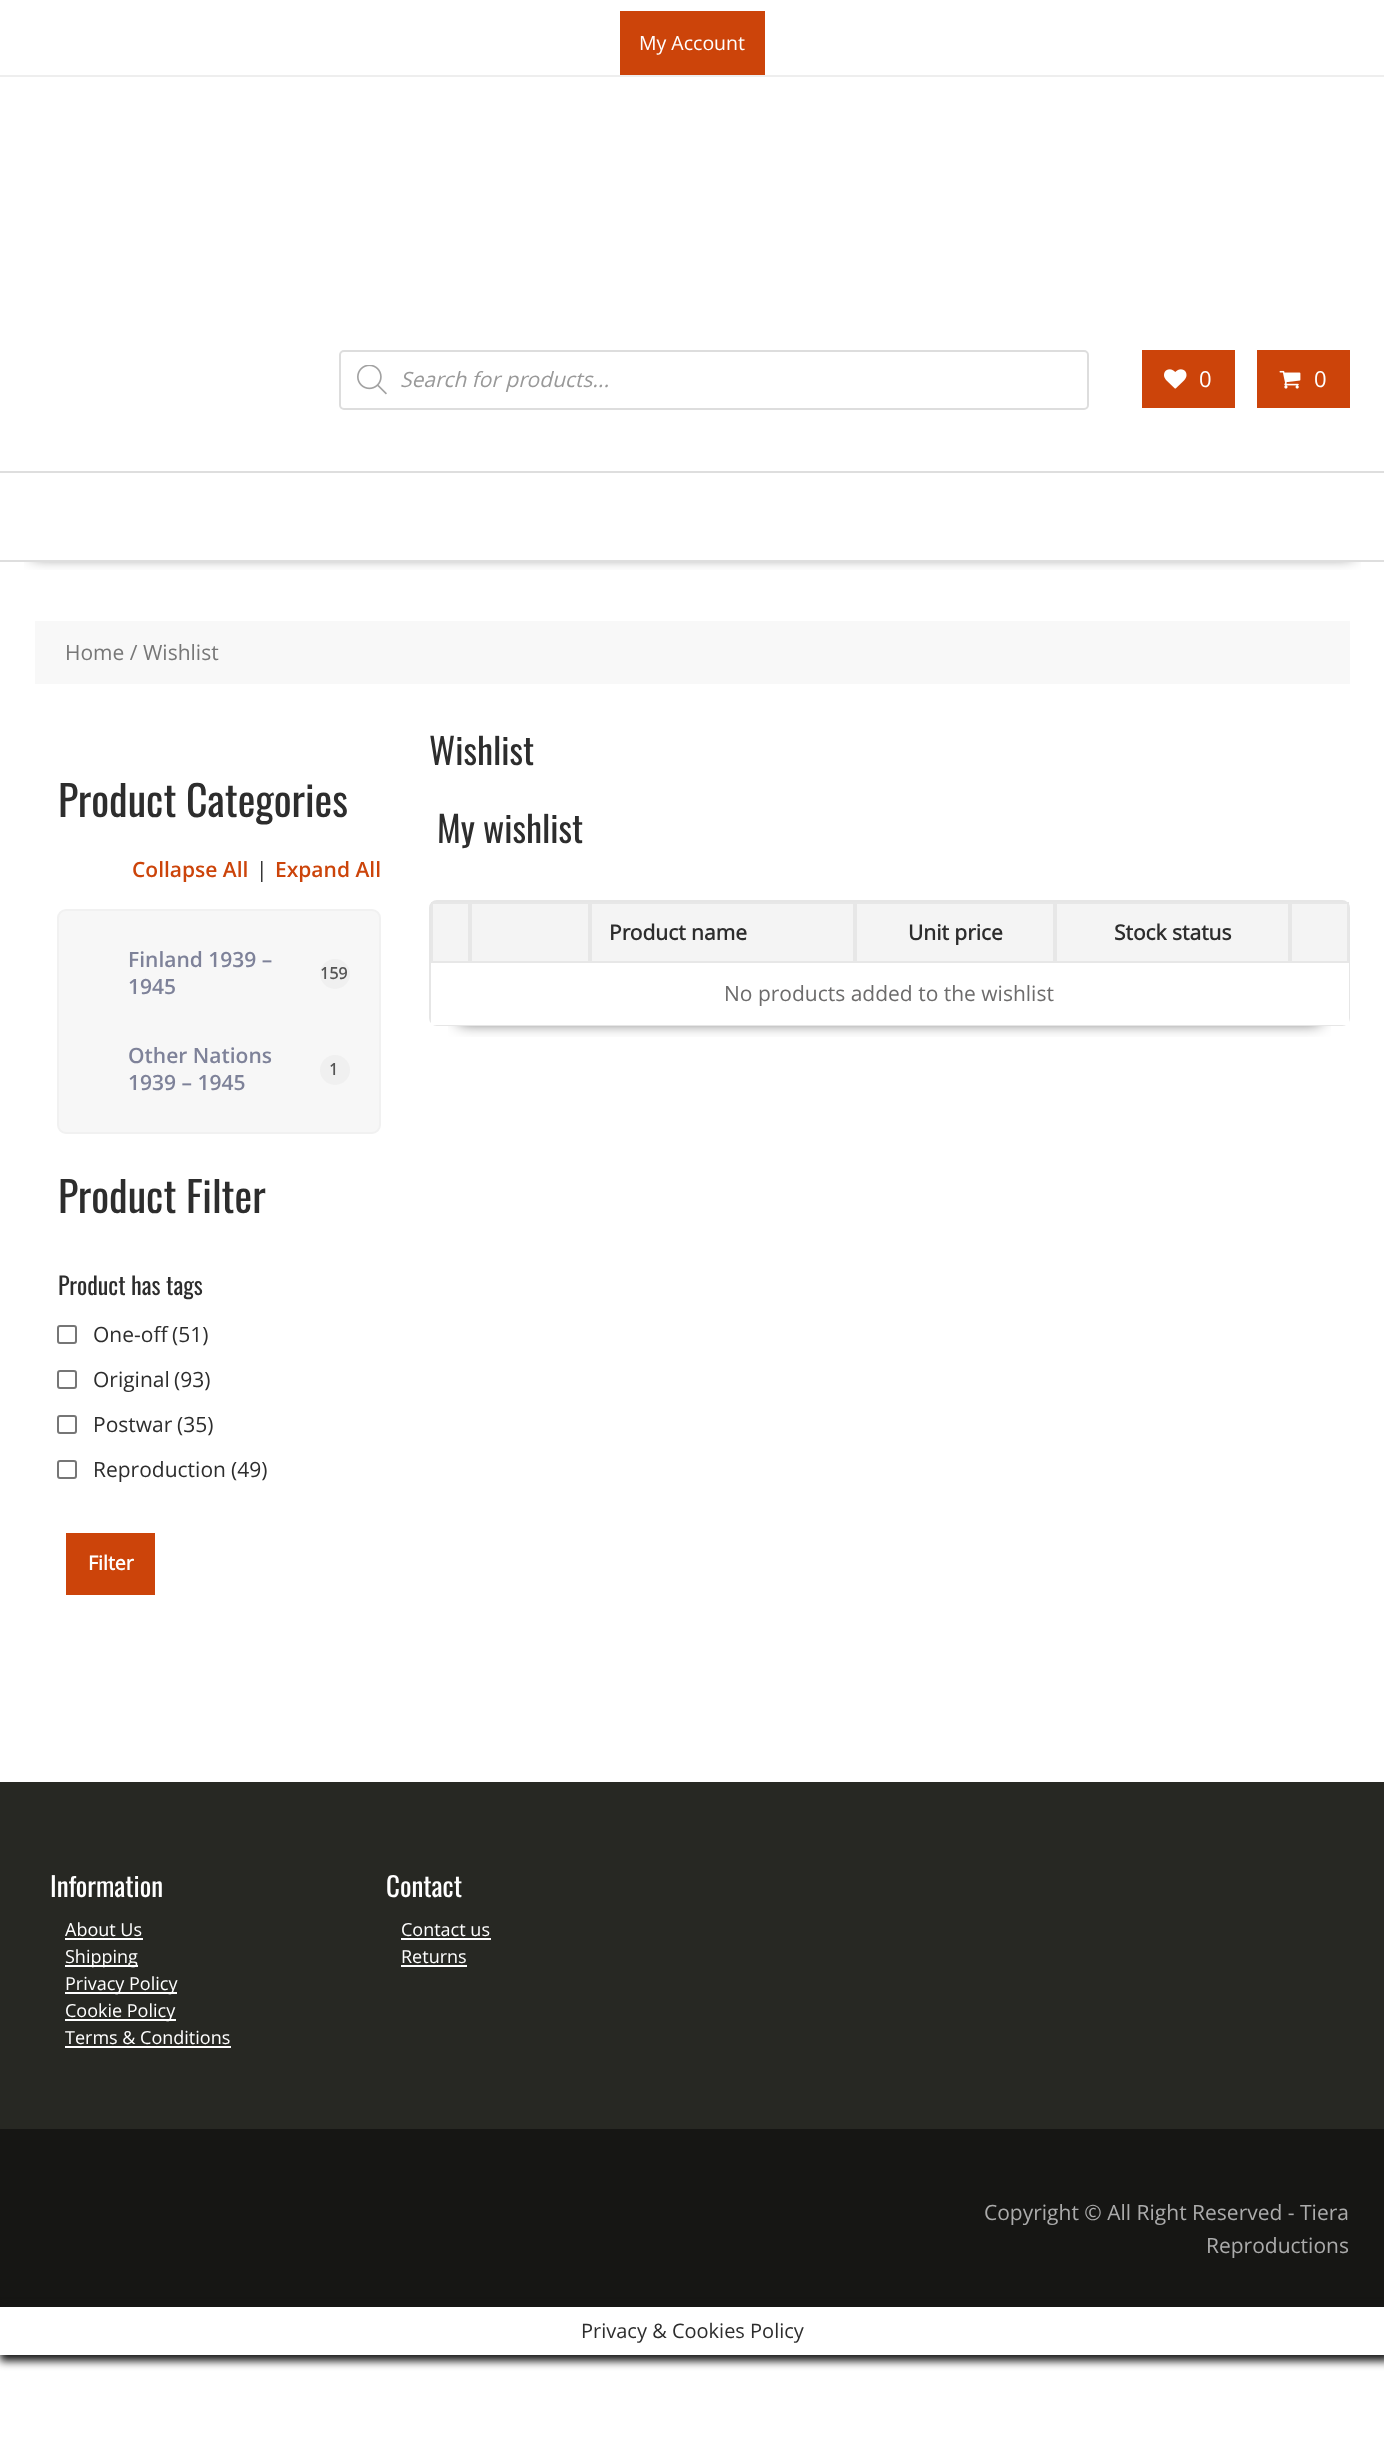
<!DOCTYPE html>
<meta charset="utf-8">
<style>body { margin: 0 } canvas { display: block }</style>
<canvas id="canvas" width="1384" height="2441"></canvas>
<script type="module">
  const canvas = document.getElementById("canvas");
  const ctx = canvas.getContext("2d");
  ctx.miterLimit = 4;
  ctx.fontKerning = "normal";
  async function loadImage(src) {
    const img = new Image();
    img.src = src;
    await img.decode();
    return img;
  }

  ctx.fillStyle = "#ffffff";
  ctx.fillRect(0, 0, 1384, 2441);
  ctx.fillStyle = "#eeeeee";
  ctx.fillRect(0, 75, 1384, 2);
  ctx.fillStyle = "#cc440a";
  ctx.fillRect(620, 11, 145, 64);
  ctx.font = "19.5px Open Sans";
  ctx.fillStyle = "#ffffff";
  ctx.fillText("My Account", 639, 50);
  ctx.beginPath();
  ctx.roundRect(340, 351, 748, 58, 4);
  ctx.strokeStyle = "#dddddd";
  ctx.lineWidth = 2;
  ctx.stroke();
  ctx.drawImage(await loadImage("img1.png"), 357, 365, 30, 30);
  ctx.font = "italic 21px Open Sans";
  ctx.fillStyle = "#999999";
  ctx.fillText("Search for products...", 400, 387);
  ctx.fillStyle = "#cc440a";
  ctx.fillRect(1142, 350, 93, 58);
  ctx.drawImage(await loadImage("img2.png"), 1164, 369, 23, 20);
  ctx.font = "22px Open Sans";
  ctx.fillStyle = "#ffffff";
  ctx.fillText("0", 1199, 387);
  ctx.fillStyle = "#cc440a";
  ctx.fillRect(1257, 350, 93, 58);
  ctx.drawImage(await loadImage("img3.png"), 1279, 370, 22, 19);
  ctx.fillStyle = "#ffffff";
  ctx.fillText("0", 1314, 387);
  ctx.save();
  ctx.beginPath();
  ctx.rect(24, 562, 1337, 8);
  ctx.clip();
  ctx.fillStyle = "rgba(0, 0, 0, 0.75)";
  ctx.filter = "blur(8px)";
  ctx.beginPath();
  ctx.rect(32, 528, 1321, 27);
  ctx.fill();
  ctx.filter = "none";
  ctx.restore();
  ctx.fillStyle = "#dedede";
  ctx.fillRect(0, 471, 1384, 2);
  ctx.fillRect(0, 560, 1384, 2);
  ctx.fillStyle = "#f8f8f8";
  ctx.fillRect(35, 621, 1315, 63);
  ctx.font = "21px Open Sans";
  ctx.fillStyle = "#777777";
  ctx.fillText("Home / Wishlist", 65, 660);
  ctx.font = "42px Oswald";
  ctx.fillStyle = "#2d2d2d";
  ctx.fillText("Product Categories", 58, 817);
  ctx.font = "600 21px Open Sans";
  ctx.fillStyle = "#cc440a";
  ctx.fillText("Collapse All", 132, 877);
  ctx.font = "21px Open Sans";
  ctx.fillStyle = "#2d2d2d";
  ctx.fillText("|", 256, 877);
  ctx.font = "600 21px Open Sans";
  ctx.fillStyle = "#cc440a";
  ctx.fillText("Expand All", 275, 877);
  ctx.fillStyle = "#f7f7f7";
  ctx.beginPath();
  ctx.roundRect(58, 910, 322, 223, 8);
  ctx.fill();
  ctx.strokeStyle = "#f1f1f1";
  ctx.stroke();
  ctx.fillStyle = "#7e8299";
  ctx.fillText("Finland 1939 –", 128, 967);
  ctx.fillText("1945", 128, 994);
  ctx.fillStyle = "#f0f0f0";
  ctx.beginPath();
  ctx.arc(335, 974, 15, 0, Math.PI * 2);
  ctx.fill();
  ctx.font = "bold 16px Open Sans";
  ctx.fillStyle = "#555555";
  ctx.fillText("159", 320, 979);
  ctx.font = "600 21px Open Sans";
  ctx.fillStyle = "#7e8299";
  ctx.fillText("Other Nations", 128, 1063);
  ctx.fillText("1939 – 1945", 128, 1090);
  ctx.fillStyle = "#f0f0f0";
  ctx.beginPath();
  ctx.arc(335, 1070, 15, 0, Math.PI * 2);
  ctx.fill();
  ctx.font = "bold 16px Open Sans";
  ctx.fillStyle = "#555555";
  ctx.fillText("1", 329, 1075);
  ctx.font = "42px Oswald";
  ctx.fillStyle = "#2d2d2d";
  ctx.fillText("Product Filter", 58, 1213);
  ctx.font = "24px Oswald";
  ctx.fillText("Product has tags", 58, 1295);
  ctx.beginPath();
  ctx.roundRect(58, 1326, 18, 17, 2);
  ctx.strokeStyle = "#767676";
  ctx.stroke();
  ctx.font = "21px Open Sans";
  ctx.fillText("One-off", 93, 1342);
  ctx.fillText("(51)", 172, 1342);
  ctx.beginPath();
  ctx.roundRect(58, 1371, 18, 17, 2);
  ctx.stroke();
  ctx.fillText("Original", 93, 1387);
  ctx.fillText("(93)", 174, 1387);
  ctx.beginPath();
  ctx.roundRect(58, 1416, 18, 17, 2);
  ctx.stroke();
  ctx.fillText("Postwar", 93, 1432);
  ctx.fillText("(35)", 177, 1432);
  ctx.beginPath();
  ctx.roundRect(58, 1461, 18, 17, 2);
  ctx.stroke();
  ctx.fillText("Reproduction", 93, 1477);
  ctx.fillText("(49)", 231, 1477);
  ctx.fillStyle = "#cc440a";
  ctx.fillRect(66, 1533, 89, 62);
  ctx.font = "bold 19.5px Open Sans";
  ctx.fillStyle = "#ffffff";
  ctx.fillText("Filter", 88, 1570);
  ctx.save();
  ctx.beginPath();
  ctx.rect(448, 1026, 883, 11);
  ctx.clip();
  ctx.fillStyle = "rgba(0, 0, 0, 0.75)";
  ctx.filter = "blur(8px)";
  ctx.beginPath();
  ctx.rect(459, 785, 861, 237);
  ctx.fill();
  ctx.filter = "none";
  ctx.restore();
  ctx.font = "36px Oswald";
  ctx.fillStyle = "#2d2d2d";
  ctx.fillText("Wishlist", 429, 765);
  ctx.fillText("My wishlist", 437, 843);
  ctx.beginPath();
  ctx.roundRect(430, 901, 919, 124, 7);
  ctx.strokeStyle = "#e6e6e6";
  ctx.stroke();
  ctx.fillStyle = "#f4f4f4";
  ctx.beginPath();
  ctx.rect(432, 903, 37, 59);
  ctx.fill();
  ctx.strokeStyle = "#e7e7e7";
  ctx.stroke();
  ctx.beginPath();
  ctx.rect(471, 903, 118, 59);
  ctx.fill();
  ctx.stroke();
  ctx.beginPath();
  ctx.rect(591, 903, 263, 59);
  ctx.fill();
  ctx.stroke();
  ctx.font = "bold 21px Open Sans";
  ctx.fillStyle = "#2d2d2d";
  ctx.fillText("Product name", 609, 940);
  ctx.fillStyle = "#f4f4f4";
  ctx.beginPath();
  ctx.rect(856, 903, 198, 59);
  ctx.fill();
  ctx.stroke();
  ctx.fillStyle = "#2d2d2d";
  ctx.fillText("Unit price", 908, 940);
  ctx.fillStyle = "#f4f4f4";
  ctx.beginPath();
  ctx.rect(1056, 903, 233, 59);
  ctx.fill();
  ctx.stroke();
  ctx.fillStyle = "#2d2d2d";
  ctx.fillText("Stock status", 1114, 940);
  ctx.fillStyle = "#f4f4f4";
  ctx.beginPath();
  ctx.rect(1291, 903, 57, 59);
  ctx.fill();
  ctx.stroke();
  ctx.fillStyle = "#ffffff";
  ctx.fillRect(431, 963, 918, 62);
  ctx.font = "21px Open Sans";
  ctx.fillStyle = "#6d6c6c";
  ctx.fillText("No products added to the wishlist", 724, 1001);
  ctx.fillStyle = "#272823";
  ctx.fillRect(0, 1782, 1384, 347);
  ctx.font = "27px Oswald";
  ctx.fillStyle = "#ffffff";
  ctx.fillText("Information", 50, 1897);
  ctx.font = "18px Open Sans";
  ctx.fillText("About Us", 65, 1936);
  ctx.fillRect(65, 1938, 78, 2);
  ctx.fillRect(65, 1965, 73, 2);
  ctx.fillText("Shipping", 65, 1963);
  ctx.fillRect(65, 1992, 112, 2);
  ctx.fillText("Privacy Policy", 65, 1990);
  ctx.fillRect(65, 2019, 111, 2);
  ctx.fillText("Cookie Policy", 65, 2017);
  ctx.fillText("Terms & Conditions", 65, 2044);
  ctx.fillRect(65, 2046, 166, 2);
  ctx.font = "27px Oswald";
  ctx.fillText("Contact", 386, 1897);
  ctx.font = "18px Open Sans";
  ctx.fillText("Contact us", 401, 1936);
  ctx.fillRect(401, 1938, 90, 2);
  ctx.fillText("Returns", 401, 1963);
  ctx.fillRect(401, 1965, 66, 2);
  ctx.fillStyle = "#161614";
  ctx.fillRect(0, 2129, 1384, 178);
  ctx.font = "21px Open Sans";
  ctx.fillStyle = "#ababab";
  ctx.fillText("Copyright © All Right Reserved - Tiera", 984, 2220);
  ctx.fillText("Reproductions", 1206, 2253);
  ctx.save();
  ctx.beginPath();
  ctx.moveTo(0, 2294);
  ctx.lineTo(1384, 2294);
  ctx.lineTo(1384, 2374);
  ctx.lineTo(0, 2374);
  ctx.closePath();
  ctx.moveTo(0, 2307);
  ctx.lineTo(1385, 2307);
  ctx.lineTo(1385, 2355);
  ctx.lineTo(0, 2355);
  ctx.closePath();
  ctx.clip("evenodd");
  ctx.fillStyle = "#161616";
  ctx.filter = "blur(4px)";
  ctx.beginPath();
  ctx.rect(0, 2307, 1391, 54);
  ctx.fill();
  ctx.filter = "none";
  ctx.restore();
  ctx.font = "20px Open Sans";
  ctx.fillStyle = "#2d2d2d";
  ctx.fillText("Privacy & Cookies Policy", 581, 2338);
</script>
